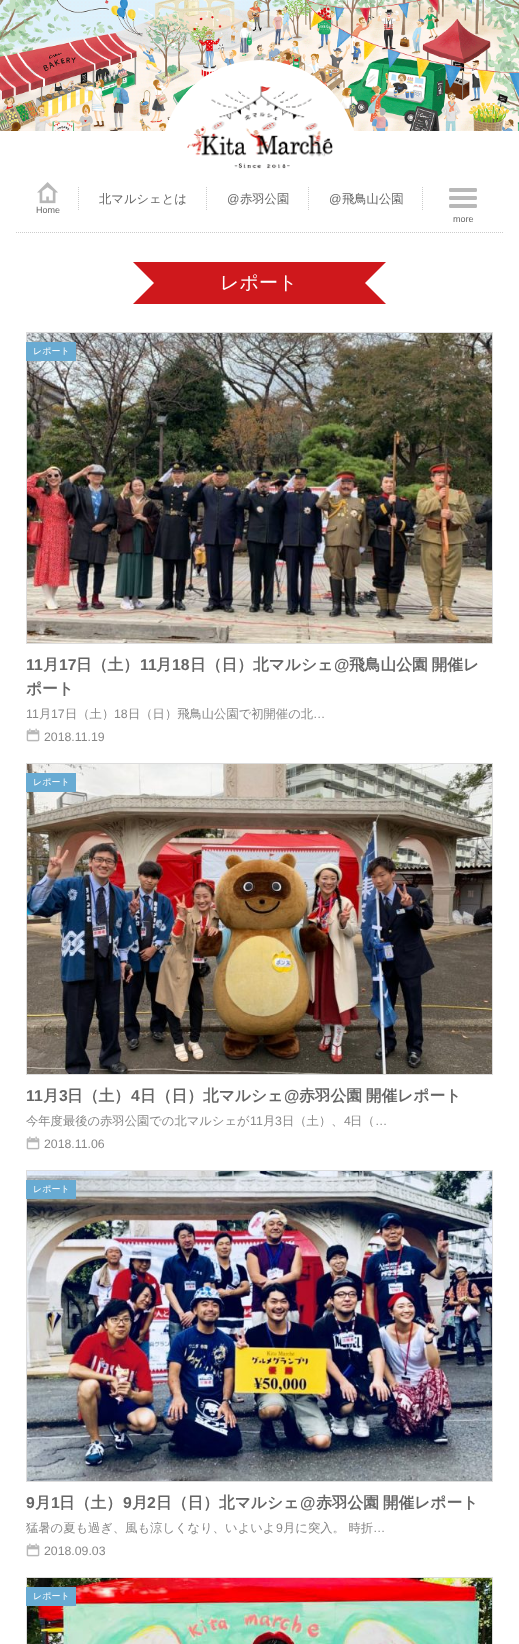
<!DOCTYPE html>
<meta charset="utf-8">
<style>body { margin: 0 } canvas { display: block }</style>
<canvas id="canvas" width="519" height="1644"></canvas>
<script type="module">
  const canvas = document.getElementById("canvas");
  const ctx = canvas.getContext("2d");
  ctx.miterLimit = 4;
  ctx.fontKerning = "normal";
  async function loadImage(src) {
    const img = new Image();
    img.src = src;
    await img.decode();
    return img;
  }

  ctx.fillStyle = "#ffffff";
  ctx.fillRect(0, 0, 519, 1644);
  ctx.drawImage(await loadImage("img1.png"), 0, 0, 519, 131);
  ctx.beginPath();
  ctx.roundRect(161, 60, 197, 113, [98.5, 98.5, 0, 0]);
  ctx.fill();
  ctx.drawImage(await loadImage("img2.png"), 186, 85, 147, 84);
  ctx.beginPath();
  ctx.moveTo(16, 232.5);
  ctx.lineTo(503, 232.5);
  ctx.strokeStyle = "#cccccc";
  ctx.setLineDash([1, 1]);
  ctx.stroke();
  ctx.font = "500 12.3px WenQuanYi Zen Hei";
  ctx.fillStyle = "#666666";
  ctx.fillText("北マルシェとは", 99, 203);
  ctx.beginPath();
  ctx.moveTo(206.5, 187);
  ctx.lineTo(206.5, 211);
  ctx.stroke();
  ctx.font = "12.3px Liberation Sans";
  ctx.fillText("@", 227, 203);
  ctx.font = "500 12.3px WenQuanYi Zen Hei";
  ctx.fillText("赤羽公園", 240, 203);
  ctx.beginPath();
  ctx.moveTo(308.5, 187);
  ctx.lineTo(308.5, 211);
  ctx.stroke();
  ctx.font = "12.3px Liberation Sans";
  ctx.fillText("@", 329, 203);
  ctx.font = "500 12.3px WenQuanYi Zen Hei";
  ctx.fillText("飛鳥山公園", 342, 203);
  ctx.beginPath();
  ctx.moveTo(422.5, 187);
  ctx.lineTo(422.5, 211);
  ctx.stroke();
  ctx.drawImage(await loadImage("img3.png"), 37, 182, 21, 22);
  ctx.font = "9px Liberation Sans";
  ctx.fillText("Home", 36, 213);
  ctx.beginPath();
  ctx.moveTo(78.5, 187);
  ctx.lineTo(78.5, 211);
  ctx.stroke();
  ctx.drawImage(await loadImage("img4.png"), 449, 188, 28, 20);
  ctx.fillText("more", 453, 222);
  ctx.fillStyle = "#cf181c";
  ctx.fillRect(154, 262, 211, 42);
  ctx.beginPath();
  ctx.moveTo(133, 262);
  ctx.lineTo(154, 262);
  ctx.lineTo(154, 283);
  ctx.closePath();
  ctx.moveTo(154, 304);
  ctx.lineTo(133, 304);
  ctx.lineTo(154, 283);
  ctx.closePath();
  ctx.fill();
  ctx.font = "500 19px WenQuanYi Zen Hei";
  ctx.fillStyle = "#ffffff";
  ctx.fillText("レポート", 220, 289);
  ctx.fillStyle = "#cf181c";
  ctx.beginPath();
  ctx.moveTo(365, 262);
  ctx.lineTo(386, 262);
  ctx.lineTo(365, 283);
  ctx.closePath();
  ctx.moveTo(386, 304);
  ctx.lineTo(365, 304);
  ctx.lineTo(365, 283);
  ctx.closePath();
  ctx.fill();
  ctx.strokeStyle = "#dddddd";
  ctx.setLineDash([]);
  ctx.strokeRect(26.5, 332.5, 466, 311);
  ctx.drawImage(await loadImage("img5.png"), 27, 333, 465, 310);
  ctx.fillStyle = "#68abd3";
  ctx.fillRect(26, 342, 50, 19);
  ctx.font = "500 9px WenQuanYi Zen Hei";
  ctx.fillStyle = "#ffffff";
  ctx.fillText("レポート", 33, 354);
  ctx.font = "bold 15.75px Liberation Sans";
  ctx.fillStyle = "#666666";
  ctx.fillText("11", 26, 670);
  ctx.font = "bold 15.75px WenQuanYi Zen Hei";
  ctx.fillText("月", 43, 670);
  ctx.font = "bold 15.75px Liberation Sans";
  ctx.fillText("17", 59, 670);
  ctx.font = "bold 15.75px WenQuanYi Zen Hei";
  ctx.fillText("日（土）", 76, 670);
  ctx.font = "bold 15.75px Liberation Sans";
  ctx.fillText("11", 140, 670);
  ctx.font = "bold 15.75px WenQuanYi Zen Hei";
  ctx.fillText("月", 156, 670);
  ctx.font = "bold 15.75px Liberation Sans";
  ctx.fillText("18", 172, 670);
  ctx.font = "bold 15.75px WenQuanYi Zen Hei";
  ctx.fillText("日（日）北マルシェ", 190, 670);
  ctx.font = "bold 15.75px Liberation Sans";
  ctx.fillText("@", 334, 670);
  ctx.wordSpacing = "-1px";
  ctx.font = "bold 15.75px WenQuanYi Zen Hei";
  ctx.fillText("飛鳥山公園 開催レ", 349, 670);
  ctx.wordSpacing = "0px";
  ctx.fillText("ポート", 26, 694);
  ctx.font = "12.3px Liberation Sans";
  ctx.fillStyle = "#888888";
  ctx.fillText("11", 26, 718);
  ctx.font = "500 12.3px WenQuanYi Zen Hei";
  ctx.fillText("月", 39, 718);
  ctx.font = "12.3px Liberation Sans";
  ctx.fillText("17", 51, 718);
  ctx.font = "500 12.3px WenQuanYi Zen Hei";
  ctx.fillText("日（土）", 65, 718);
  ctx.font = "12.3px Liberation Sans";
  ctx.fillText("18", 114, 718);
  ctx.font = "500 12.3px WenQuanYi Zen Hei";
  ctx.fillText("日（日）飛鳥山公園で初開催の北", 128, 718);
  ctx.font = "12.3px Liberation Sans";
  ctx.fillText("…", 313, 718);
  ctx.drawImage(await loadImage("img6.png"), 26, 728, 14, 14);
  ctx.fillText("2018.11.19", 44, 741);
  ctx.strokeRect(26.5, 763.5, 466, 311);
  ctx.drawImage(await loadImage("img7.png"), 27, 764, 465, 310);
  ctx.fillStyle = "#68abd3";
  ctx.fillRect(26, 773, 50, 19);
  ctx.font = "500 9px WenQuanYi Zen Hei";
  ctx.fillStyle = "#ffffff";
  ctx.fillText("レポート", 33, 785);
  ctx.font = "bold 15.75px Liberation Sans";
  ctx.fillStyle = "#666666";
  ctx.fillText("11", 26, 1101);
  ctx.font = "bold 15.75px WenQuanYi Zen Hei";
  ctx.fillText("月", 43, 1101);
  ctx.font = "bold 15.75px Liberation Sans";
  ctx.fillText("3", 59, 1101);
  ctx.font = "bold 15.75px WenQuanYi Zen Hei";
  ctx.fillText("日（土）", 67, 1101);
  ctx.font = "bold 15.75px Liberation Sans";
  ctx.fillText("4", 131, 1101);
  ctx.font = "bold 15.75px WenQuanYi Zen Hei";
  ctx.fillText("日（日）北マルシェ", 140, 1101);
  ctx.font = "bold 15.75px Liberation Sans";
  ctx.fillText("@", 284, 1101);
  ctx.wordSpacing = "-1px";
  ctx.font = "bold 15.75px WenQuanYi Zen Hei";
  ctx.fillText("赤羽公園 開催レポート", 299, 1101);
  ctx.wordSpacing = "0px";
  ctx.font = "500 12.3px WenQuanYi Zen Hei";
  ctx.fillStyle = "#888888";
  ctx.fillText("今年度最後の赤羽公園での北マルシェが", 26, 1125);
  ctx.font = "12.3px Liberation Sans";
  ctx.fillText("11", 250, 1125);
  ctx.font = "500 12.3px WenQuanYi Zen Hei";
  ctx.fillText("月", 263, 1125);
  ctx.font = "12.3px Liberation Sans";
  ctx.fillText("3", 275, 1125);
  ctx.font = "500 12.3px WenQuanYi Zen Hei";
  ctx.fillText("日（土）、", 282, 1125);
  ctx.font = "12.3px Liberation Sans";
  ctx.fillText("4", 344, 1125);
  ctx.font = "500 12.3px WenQuanYi Zen Hei";
  ctx.fillText("日（", 350, 1125);
  ctx.font = "12.3px Liberation Sans";
  ctx.fillText("…", 375, 1125);
  ctx.drawImage(await loadImage("img6.png"), 26, 1136, 14, 14);
  ctx.fillText("2018.11.06", 44, 1148);
  ctx.strokeRect(26.5, 1170.5, 466, 311);
  ctx.drawImage(await loadImage("img8.png"), 27, 1171, 465, 310);
  ctx.fillStyle = "#68abd3";
  ctx.fillRect(26, 1180, 50, 19);
  ctx.font = "500 9px WenQuanYi Zen Hei";
  ctx.fillStyle = "#ffffff";
  ctx.fillText("レポート", 33, 1192);
  ctx.font = "bold 15.75px Liberation Sans";
  ctx.fillStyle = "#666666";
  ctx.fillText("9", 26, 1508);
  ctx.font = "bold 15.75px WenQuanYi Zen Hei";
  ctx.fillText("月", 35, 1508);
  ctx.font = "bold 15.75px Liberation Sans";
  ctx.fillText("1", 51, 1508);
  ctx.font = "bold 15.75px WenQuanYi Zen Hei";
  ctx.fillText("日（土）", 59, 1508);
  ctx.font = "bold 15.75px Liberation Sans";
  ctx.fillText("9", 123, 1508);
  ctx.font = "bold 15.75px WenQuanYi Zen Hei";
  ctx.fillText("月", 132, 1508);
  ctx.font = "bold 15.75px Liberation Sans";
  ctx.fillText("2", 147, 1508);
  ctx.font = "bold 15.75px WenQuanYi Zen Hei";
  ctx.fillText("日（日）北マルシェ", 156, 1508);
  ctx.font = "bold 15.75px Liberation Sans";
  ctx.fillText("@", 300, 1508);
  ctx.wordSpacing = "-1px";
  ctx.font = "bold 15.75px WenQuanYi Zen Hei";
  ctx.fillText("赤羽公園 開催レポート", 316, 1508);
  ctx.wordSpacing = "0px";
  ctx.font = "500 12.3px WenQuanYi Zen Hei";
  ctx.fillStyle = "#888888";
  ctx.fillText("猛暑の夏も過ぎ、風も涼しくなり、いよいよ", 26, 1532);
  ctx.font = "12.3px Liberation Sans";
  ctx.fillText("9", 276, 1532);
  ctx.font = "500 12.3px WenQuanYi Zen Hei";
  ctx.fillText("月に突入。 時折", 283, 1532);
  ctx.font = "12.3px Liberation Sans";
  ctx.fillText("…", 373, 1532);
  ctx.drawImage(await loadImage("img6.png"), 26, 1543, 14, 14);
  ctx.fillText("2018.09.03", 44, 1555);
  ctx.strokeRect(26.5, 1577.5, 466, 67);
  ctx.drawImage(await loadImage("img9.png"), 27, 1578, 465, 66);
  ctx.fillStyle = "#68abd3";
  ctx.fillRect(26, 1587, 50, 19);
  ctx.font = "500 9px WenQuanYi Zen Hei";
  ctx.fillStyle = "#ffffff";
  ctx.fillText("レポート", 33, 1599);
</script>
